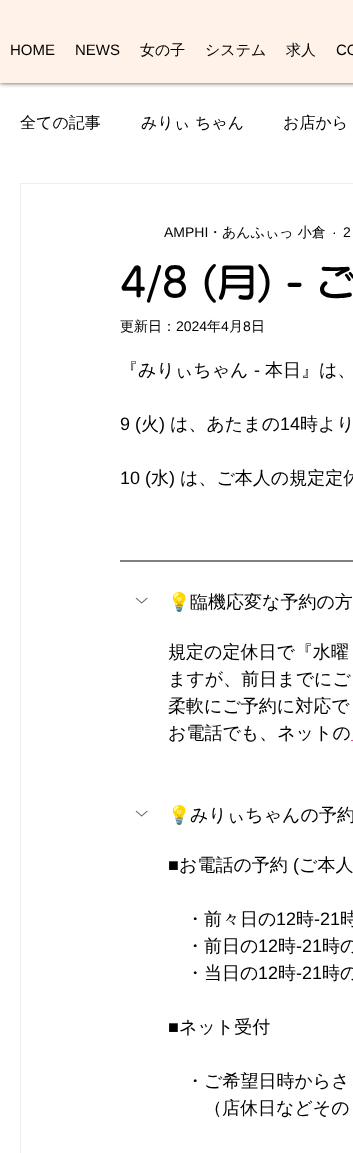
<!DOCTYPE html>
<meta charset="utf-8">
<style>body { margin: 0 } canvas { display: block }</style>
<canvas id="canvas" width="353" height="1153"></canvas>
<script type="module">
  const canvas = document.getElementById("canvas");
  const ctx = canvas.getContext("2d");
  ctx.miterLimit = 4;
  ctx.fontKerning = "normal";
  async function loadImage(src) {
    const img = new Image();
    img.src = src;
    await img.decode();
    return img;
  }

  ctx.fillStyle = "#fff2e8";
  ctx.fillRect(0, 0, 353, 1153);
  ctx.fillStyle = "#ffffff";
  ctx.fillRect(0, 83, 353, 1070);
  ctx.save();
  ctx.beginPath();
  ctx.rect(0, 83, 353, 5);
  ctx.clip();
  ctx.fillStyle = "rgba(0, 0, 0, 0.7)";
  ctx.filter = "blur(2.5px)";
  ctx.beginPath();
  ctx.rect(0, 0, 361, 83);
  ctx.fill();
  ctx.filter = "none";
  ctx.restore();
  ctx.font = "15px Liberation Sans";
  ctx.fillStyle = "#000000";
  ctx.fillText("HOME", 10, 55);
  ctx.fillText("NEWS", 75, 55);
  ctx.font = "500 15px WenQuanYi Zen Hei";
  ctx.fillText("女の子", 140, 55);
  ctx.fillText("システム", 205, 55);
  ctx.fillText("求人", 286, 55);
  ctx.font = "15px Liberation Sans";
  ctx.fillText("CO", 336, 55);
  ctx.font = "500 16px WenQuanYi Zen Hei";
  ctx.fillText("全ての記事", 20, 128);
  ctx.fillText("みりぃ ちゃん", 141, 128);
  ctx.fillText("お店から", 283, 128);
  ctx.strokeStyle = "#eeeeee";
  ctx.strokeRect(20.5, 183.5, 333, 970);
  ctx.font = "14px Liberation Sans";
  ctx.fillText("AMPHI", 164, 237);
  ctx.font = "500 14px WenQuanYi Zen Hei";
  ctx.fillText("・あんふぃっ 小倉", 208, 237);
  ctx.font = "14px Liberation Sans";
  ctx.fillText("·", 332, 237);
  ctx.fillText("2", 343, 237);
  ctx.font = "600 40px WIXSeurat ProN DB";
  ctx.fillText("4/8 (月) - ご", 120, 297);
  ctx.font = "500 14px WenQuanYi Zen Hei";
  ctx.fillText("更新日：", 120, 331);
  ctx.font = "14px Liberation Sans";
  ctx.fillText("2024", 176, 331);
  ctx.font = "500 14px WenQuanYi Zen Hei";
  ctx.fillText("年", 207, 331);
  ctx.font = "14px Liberation Sans";
  ctx.fillText("4", 221, 331);
  ctx.font = "500 14px WenQuanYi Zen Hei";
  ctx.fillText("月", 229, 331);
  ctx.font = "14px Liberation Sans";
  ctx.fillText("8", 243, 331);
  ctx.font = "500 14px WenQuanYi Zen Hei";
  ctx.fillText("日", 251, 331);
  ctx.font = "500 18px WenQuanYi Zen Hei";
  ctx.fillText("『みりぃちゃん", 120, 376);
  ctx.font = "18px Liberation Sans";
  ctx.fillText("-", 254, 376);
  ctx.font = "500 18px WenQuanYi Zen Hei";
  ctx.fillText("本日』は、", 265, 376);
  ctx.font = "18px Liberation Sans";
  ctx.fillText("9 (", 120, 430);
  ctx.font = "500 18px WenQuanYi Zen Hei";
  ctx.fillText("火", 141, 430);
  ctx.font = "18px Liberation Sans";
  ctx.fillText(")", 159, 430);
  ctx.font = "500 18px WenQuanYi Zen Hei";
  ctx.fillText("は、あたまの", 170, 430);
  ctx.font = "18px Liberation Sans";
  ctx.fillText("14", 280, 430);
  ctx.font = "500 18px WenQuanYi Zen Hei";
  ctx.fillText("時より", 300, 430);
  ctx.font = "18px Liberation Sans";
  ctx.fillText("10 (", 120, 484);
  ctx.font = "500 18px WenQuanYi Zen Hei";
  ctx.fillText("水", 151, 484);
  ctx.font = "18px Liberation Sans";
  ctx.fillText(")", 169, 484);
  ctx.font = "500 18px WenQuanYi Zen Hei";
  ctx.fillText("は、ご本人の規定定休", 180, 484);
  ctx.beginPath();
  ctx.moveTo(120, 561);
  ctx.lineTo(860, 561);
  ctx.strokeStyle = "#000000";
  ctx.stroke();
  ctx.drawImage(await loadImage("img1.png"), 135, 597, 13, 7);
  ctx.font = "18px Noto Color Emoji";
  ctx.fillText("💡", 168, 608);
  ctx.font = "500 18px WenQuanYi Zen Hei";
  ctx.fillText("臨機応変な予約の方", 190, 608);
  ctx.fillText("規定の定休日で『水曜", 168, 658);
  ctx.fillText("ますが、前日までにご", 168, 685);
  ctx.fillText("柔軟にご予約に対応で", 168, 712);
  ctx.fillText("お電話でも、ネットの", 168, 739);
  ctx.fillStyle = "#ff3f9c";
  ctx.fillRect(351, 740, 2, 1);
  ctx.drawImage(await loadImage("img1.png"), 135, 810, 13, 7);
  ctx.font = "18px Noto Color Emoji";
  ctx.fillStyle = "#000000";
  ctx.fillText("💡", 168, 821);
  ctx.font = "500 18px WenQuanYi Zen Hei";
  ctx.fillText("みりぃちゃんの予約", 190, 821);
  ctx.font = "18px Liberation Sans";
  ctx.fillText("■", 168, 871);
  ctx.font = "500 18px WenQuanYi Zen Hei";
  ctx.fillText("お電話の予約", 179, 871);
  ctx.font = "18px Liberation Sans";
  ctx.fillText("(", 293, 871);
  ctx.font = "500 18px WenQuanYi Zen Hei";
  ctx.fillText("ご本人", 299, 871);
  ctx.fillText("・前々日の", 186, 925);
  ctx.font = "18px Liberation Sans";
  ctx.fillText("12", 276, 925);
  ctx.font = "500 18px WenQuanYi Zen Hei";
  ctx.fillText("時", 296, 925);
  ctx.font = "18px Liberation Sans";
  ctx.fillText("-21", 314, 925);
  ctx.font = "500 18px WenQuanYi Zen Hei";
  ctx.fillText("時", 340, 925);
  ctx.fillText("・前日の", 186, 952);
  ctx.font = "18px Liberation Sans";
  ctx.fillText("12", 258, 952);
  ctx.font = "500 18px WenQuanYi Zen Hei";
  ctx.fillText("時", 278, 952);
  ctx.font = "18px Liberation Sans";
  ctx.fillText("-21", 296, 952);
  ctx.font = "500 18px WenQuanYi Zen Hei";
  ctx.fillText("時の", 322, 952);
  ctx.fillText("・当日の", 186, 979);
  ctx.font = "18px Liberation Sans";
  ctx.fillText("12", 258, 979);
  ctx.font = "500 18px WenQuanYi Zen Hei";
  ctx.fillText("時", 278, 979);
  ctx.font = "18px Liberation Sans";
  ctx.fillText("-21", 296, 979);
  ctx.font = "500 18px WenQuanYi Zen Hei";
  ctx.fillText("時の", 322, 979);
  ctx.font = "18px Liberation Sans";
  ctx.fillText("■", 168, 1033);
  ctx.font = "500 18px WenQuanYi Zen Hei";
  ctx.fillText("ネット受付", 179, 1033);
  ctx.fillText("・ご希望日時からさ", 186, 1087);
  ctx.fillText("（店休日などその", 204, 1114);
</script>
